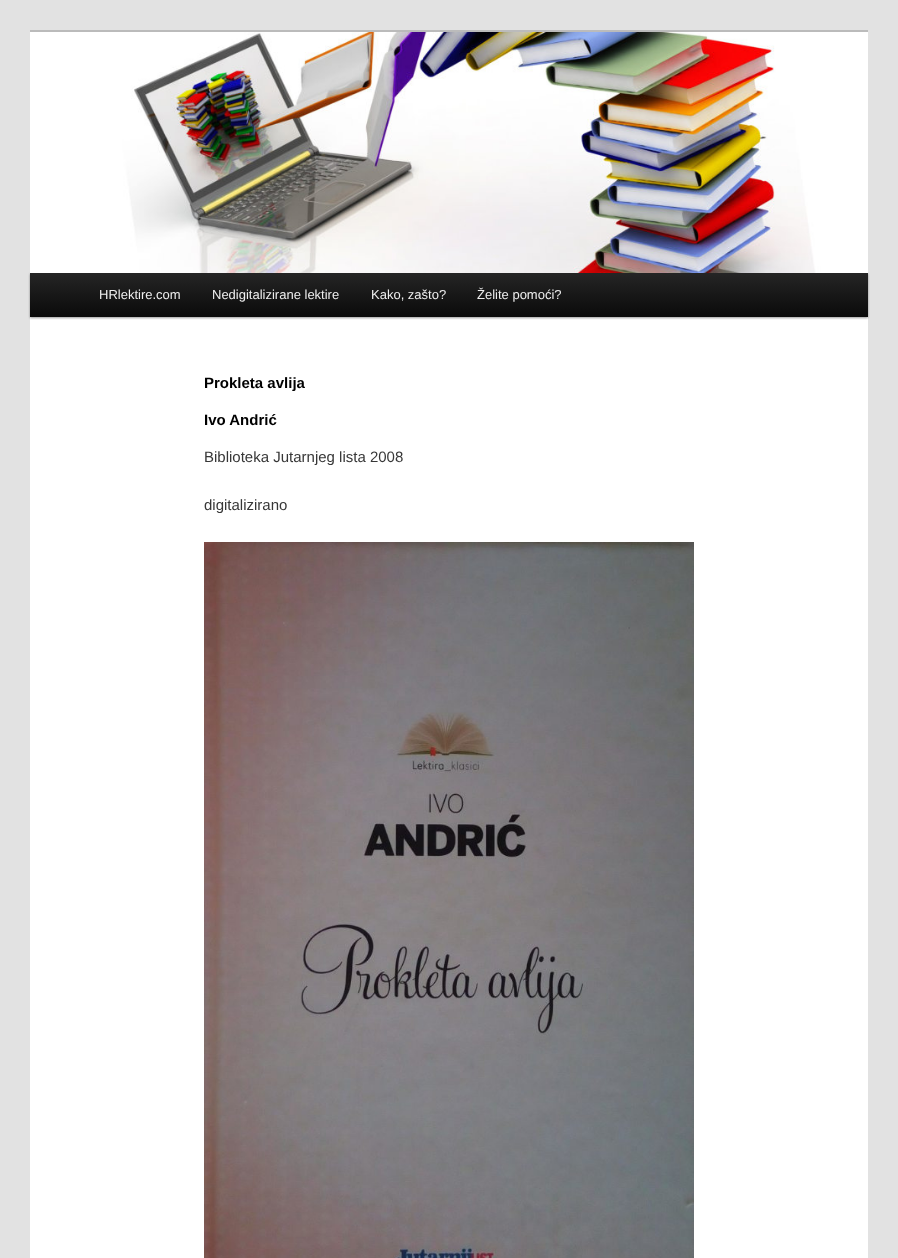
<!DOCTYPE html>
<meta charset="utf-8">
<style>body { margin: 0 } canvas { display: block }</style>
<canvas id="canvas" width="898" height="1258"></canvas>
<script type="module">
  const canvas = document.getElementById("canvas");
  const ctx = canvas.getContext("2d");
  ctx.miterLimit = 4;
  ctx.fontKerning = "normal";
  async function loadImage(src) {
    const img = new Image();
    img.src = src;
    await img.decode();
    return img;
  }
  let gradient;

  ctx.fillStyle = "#e2e2e2";
  ctx.fillRect(0, 0, 898, 1258);
  ctx.fillStyle = "#ffffff";
  ctx.fillRect(30, 317, 838, 941);
  ctx.fillStyle = "#bbbbbb";
  ctx.fillRect(30, 30, 838, 2);
  ctx.fillStyle = "rgba(0, 0, 0, 0.4)";
  ctx.filter = "blur(1px)";
  ctx.beginPath();
  ctx.rect(30, 274, 838, 44);
  ctx.fill();
  ctx.filter = "none";
  ctx.drawImage(await loadImage("img1.png"), 30, 32, 838, 241);
  gradient = ctx.createLinearGradient(449, 273, 449, 317);
  gradient.addColorStop(0, "#252525");
  gradient.addColorStop(1, "#0a0a0a");
  ctx.fillStyle = gradient;
  ctx.fillRect(30, 273, 838, 44);
  ctx.font = "13px Liberation Sans";
  ctx.fillStyle = "#eeeeee";
  ctx.fillText("HRlektire.com", 99, 299);
  ctx.fillText("Nedigitalizirane lektire", 212, 299);
  ctx.fillText("Kako, zašto?", 371, 299);
  ctx.fillText("Želite pomoći?", 477, 299);
  ctx.font = "bold 15px Liberation Sans";
  ctx.fillStyle = "#000000";
  ctx.fillText("Prokleta avlija", 204, 388);
  ctx.fillText("Ivo Andrić", 204, 425);
  ctx.font = "15px Liberation Sans";
  ctx.fillStyle = "#373737";
  ctx.fillText("Biblioteka Jutarnjeg lista 2008", 204, 462);
  ctx.fillText("digitalizirano", 204, 510);
  ctx.drawImage(await loadImage("img2.png"), 204, 542, 490, 716);
</script>
